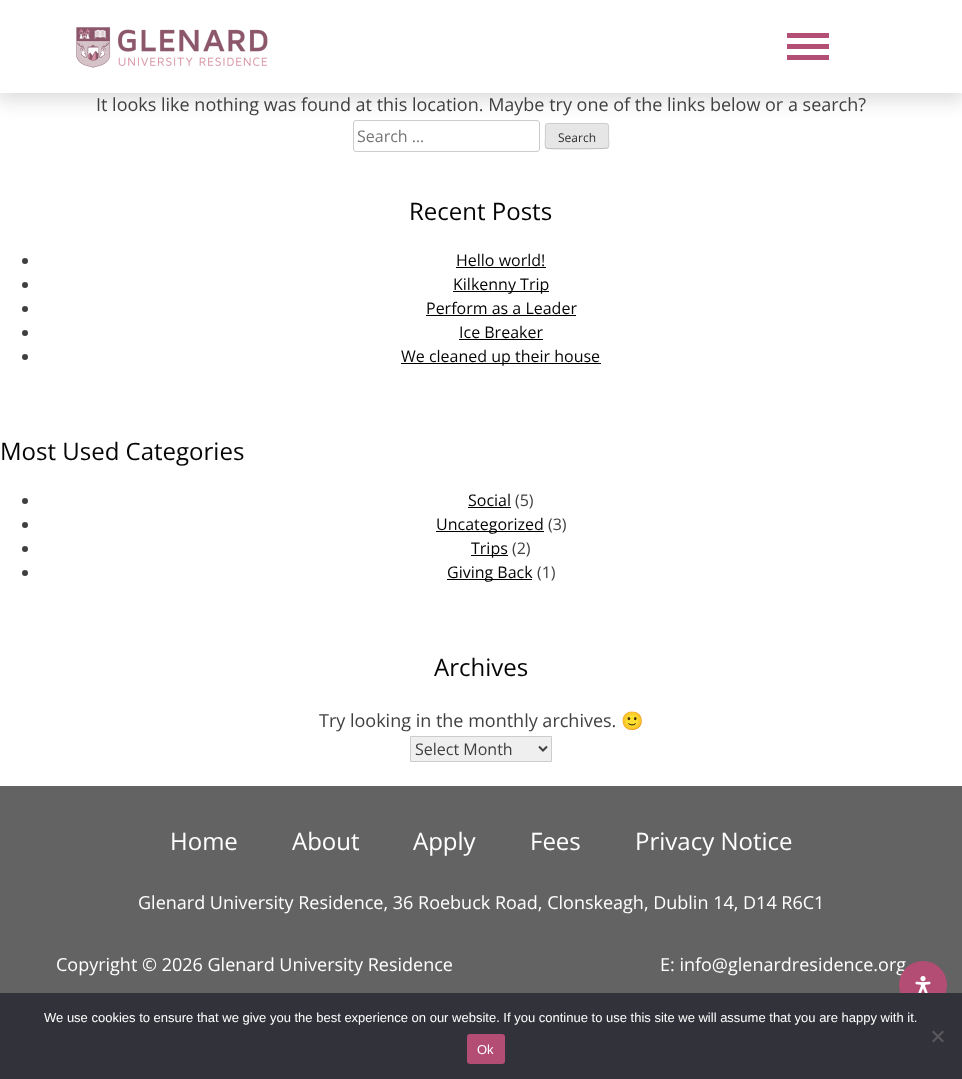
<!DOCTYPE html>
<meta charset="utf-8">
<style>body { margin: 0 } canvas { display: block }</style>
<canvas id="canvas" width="962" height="1079"></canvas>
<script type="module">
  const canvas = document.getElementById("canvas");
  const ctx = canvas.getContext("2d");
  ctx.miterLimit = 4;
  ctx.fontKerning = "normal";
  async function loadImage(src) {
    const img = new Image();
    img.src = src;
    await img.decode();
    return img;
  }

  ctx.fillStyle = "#ffffff";
  ctx.fillRect(0, 0, 962, 1079);
  ctx.beginPath();
  ctx.roundRect(353.5, 120.5, 186, 31, 2.5);
  ctx.strokeStyle = "#cccccc";
  ctx.stroke();
  ctx.fillStyle = "#e6e6e6";
  ctx.beginPath();
  ctx.roundRect(545, 123, 64, 26, 3);
  ctx.fill();
  ctx.beginPath();
  ctx.moveTo(608, 148);
  ctx.lineTo(607.5, 148);
  ctx.bezierCurveTo(606.5, 149, 553, 149, 548, 148.5);
  ctx.lineTo(546, 148);
  ctx.strokeStyle = "#bbbbbb";
  ctx.stroke();
  ctx.beginPath();
  ctx.moveTo(546, 148);
  ctx.bezierCurveTo(544.5, 146, 545.5, 138.5, 545.5, 136);
  ctx.bezierCurveTo(545.5, 121.5, 543, 123.5, 557.5, 123.5);
  ctx.lineTo(596.5, 123.5);
  ctx.bezierCurveTo(611, 123.5, 608.5, 121.5, 608.5, 136);
  ctx.bezierCurveTo(608.5, 138.5, 609.5, 146, 608, 148);
  ctx.strokeStyle = "#cccccc";
  ctx.stroke();
  ctx.fillStyle = "rgba(24, 24, 24, 0.14)";
  ctx.filter = "blur(9px)";
  ctx.beginPath();
  ctx.rect(-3, 2, 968, 99);
  ctx.fill();
  ctx.filter = "none";
  ctx.fillStyle = "#ffffff";
  ctx.fillRect(0, 0, 962, 93);
  ctx.drawImage(await loadImage("img1.png"), 76, 27, 192, 41);
  ctx.fillStyle = "#b34f75";
  ctx.fillRect(787, 33, 42, 5);
  ctx.fillRect(787, 44, 42, 5);
  ctx.fillRect(787, 55, 42, 5);
  ctx.font = "18px Open Sans";
  ctx.fillStyle = "#404040";
  ctx.fillText("It looks like nothing was found at this location. Maybe try one of the links below or a search?", 96, 111);
  ctx.font = "16px Open Sans";
  ctx.fillStyle = "#757575";
  ctx.fillText("Search …", 357, 142);
  ctx.font = "12px Open Sans";
  ctx.fillStyle = "#2e2e2e";
  ctx.fillText("Search", 558, 142);
  ctx.font = "24px Open Sans";
  ctx.fillStyle = "#050505";
  ctx.fillText("Recent Posts", 409, 220);
  ctx.fillStyle = "#404040";
  ctx.beginPath();
  ctx.arc(25, 261, 3, 0, Math.PI * 2);
  ctx.fill();
  ctx.font = "16px Open Sans";
  ctx.fillStyle = "#050505";
  ctx.fillText("Hello world!", 456, 266);
  ctx.fillStyle = "#000000";
  ctx.fillRect(456, 267, 90, 1);
  ctx.fillStyle = "#404040";
  ctx.beginPath();
  ctx.arc(25, 285, 3, 0, Math.PI * 2);
  ctx.fill();
  ctx.fillStyle = "#000000";
  ctx.fillRect(453, 291, 96, 1);
  ctx.fillStyle = "#050505";
  ctx.fillText("Kilkenny Trip", 453, 290);
  ctx.fillStyle = "#404040";
  ctx.beginPath();
  ctx.arc(25, 309, 3, 0, Math.PI * 2);
  ctx.fill();
  ctx.fillStyle = "#050505";
  ctx.fillText("Perform as a Leader", 426, 314);
  ctx.fillStyle = "#000000";
  ctx.fillRect(426, 315, 150, 1);
  ctx.fillStyle = "#404040";
  ctx.beginPath();
  ctx.arc(25, 333, 3, 0, Math.PI * 2);
  ctx.fill();
  ctx.fillStyle = "#050505";
  ctx.fillText("Ice Breaker", 459, 338);
  ctx.fillStyle = "#000000";
  ctx.fillRect(459, 339, 84, 1);
  ctx.fillStyle = "#404040";
  ctx.beginPath();
  ctx.arc(25, 357, 3, 0, Math.PI * 2);
  ctx.fill();
  ctx.fillStyle = "#000000";
  ctx.fillRect(401, 363, 200, 1);
  ctx.fillStyle = "#050505";
  ctx.fillText("We cleaned up their house", 401, 362);
  ctx.font = "24px Open Sans";
  ctx.fillText("Most Used Categories", 0, 460);
  ctx.fillStyle = "#404040";
  ctx.beginPath();
  ctx.arc(25, 501, 3, 0, Math.PI * 2);
  ctx.fill();
  ctx.font = "16px Open Sans";
  ctx.fillStyle = "#050505";
  ctx.fillText("Social", 468, 506);
  ctx.fillStyle = "#000000";
  ctx.fillRect(468, 507, 43, 1);
  ctx.fillStyle = "#404040";
  ctx.fillText("(5)", 515, 506);
  ctx.beginPath();
  ctx.arc(25, 525, 3, 0, Math.PI * 2);
  ctx.fill();
  ctx.fillStyle = "#000000";
  ctx.fillRect(436, 531, 108, 1);
  ctx.fillStyle = "#050505";
  ctx.fillText("Uncategorized", 436, 530);
  ctx.fillStyle = "#404040";
  ctx.fillText("(3)", 548, 530);
  ctx.beginPath();
  ctx.arc(25, 549, 3, 0, Math.PI * 2);
  ctx.fill();
  ctx.fillStyle = "#000000";
  ctx.fillRect(471, 555, 37, 1);
  ctx.fillStyle = "#050505";
  ctx.fillText("Trips", 471, 554);
  ctx.fillStyle = "#404040";
  ctx.fillText("(2)", 512, 554);
  ctx.beginPath();
  ctx.arc(25, 573, 3, 0, Math.PI * 2);
  ctx.fill();
  ctx.fillStyle = "#000000";
  ctx.fillRect(447, 579, 85, 1);
  ctx.fillStyle = "#050505";
  ctx.fillText("Giving Back", 447, 578);
  ctx.fillStyle = "#404040";
  ctx.fillText("(1)", 537, 578);
  ctx.font = "24px Open Sans";
  ctx.fillStyle = "#050505";
  ctx.fillText("Archives", 434, 676);
  ctx.font = "18px Open Sans";
  ctx.fillStyle = "#404040";
  ctx.fillText("Try looking in the monthly archives.", 319, 727);
  ctx.font = "18px Noto Color Emoji";
  ctx.fillText("🙂", 621, 727);
  ctx.fillStyle = "#efefef";
  ctx.beginPath();
  ctx.rect(410.5, 736.5, 141, 25);
  ctx.fill();
  ctx.stroke();
  ctx.beginPath();
  ctx.moveTo(539, 746.5);
  ctx.lineTo(543, 750.5);
  ctx.lineTo(547, 746.5);
  ctx.strokeStyle = "#404040";
  ctx.lineWidth = 2;
  ctx.stroke();
  ctx.font = "16px Open Sans";
  ctx.fillStyle = "#404040";
  ctx.fillText("Select Month", 415, 755);
  ctx.fillStyle = "#636363";
  ctx.fillRect(0, 786, 962, 207);
  ctx.font = "24px Open Sans";
  ctx.fillStyle = "#ffffff";
  ctx.fillText("Home", 170, 850);
  ctx.fillText("About", 292, 850);
  ctx.fillText("Apply", 413, 850);
  ctx.fillText("Fees", 530, 850);
  ctx.fillText("Privacy Notice", 635, 850);
  ctx.font = "18px Open Sans";
  ctx.fillText("Glenard University Residence, 36 Roebuck Road, Clonskeagh, Dublin 14, D14 R6C1", 138, 909);
  ctx.fillText("Copyright © 2026 Glenard University Residence", 56, 971);
  ctx.fillText("E: info@glenardresidence.org", 660, 971);
  ctx.fillStyle = "#b34d74";
  ctx.beginPath();
  ctx.arc(923, 985, 24, 0, Math.PI * 2);
  ctx.fill();
  ctx.drawImage(await loadImage("img2.png"), 915, 976, 16, 17);
  ctx.fillStyle = "#32323a";
  ctx.fillRect(0, 993, 962, 86);
  ctx.font = "13px Liberation Sans";
  ctx.fillStyle = "#ffffff";
  ctx.fillText("We use cookies to ensure that we give you the best experience on our website. If you continue to use this site we will assume that you are happy with it.", 44, 1022);
  ctx.fillStyle = "#59595d";
  ctx.beginPath();
  ctx.moveTo(942.5, 1030.5);
  ctx.lineTo(944, 1032);
  ctx.lineTo(933.5, 1042.5);
  ctx.lineTo(932, 1041);
  ctx.closePath();
  ctx.fill();
  ctx.beginPath();
  ctx.moveTo(932, 1032);
  ctx.lineTo(933.5, 1030.5);
  ctx.lineTo(944, 1041);
  ctx.lineTo(942.5, 1042.5);
  ctx.closePath();
  ctx.fill();
  ctx.fillStyle = "#b34d74";
  ctx.beginPath();
  ctx.roundRect(467, 1034, 38, 30, 3);
  ctx.fill();
  ctx.fillStyle = "#ffffff";
  ctx.fillText("Ok", 477, 1054);
</script>
